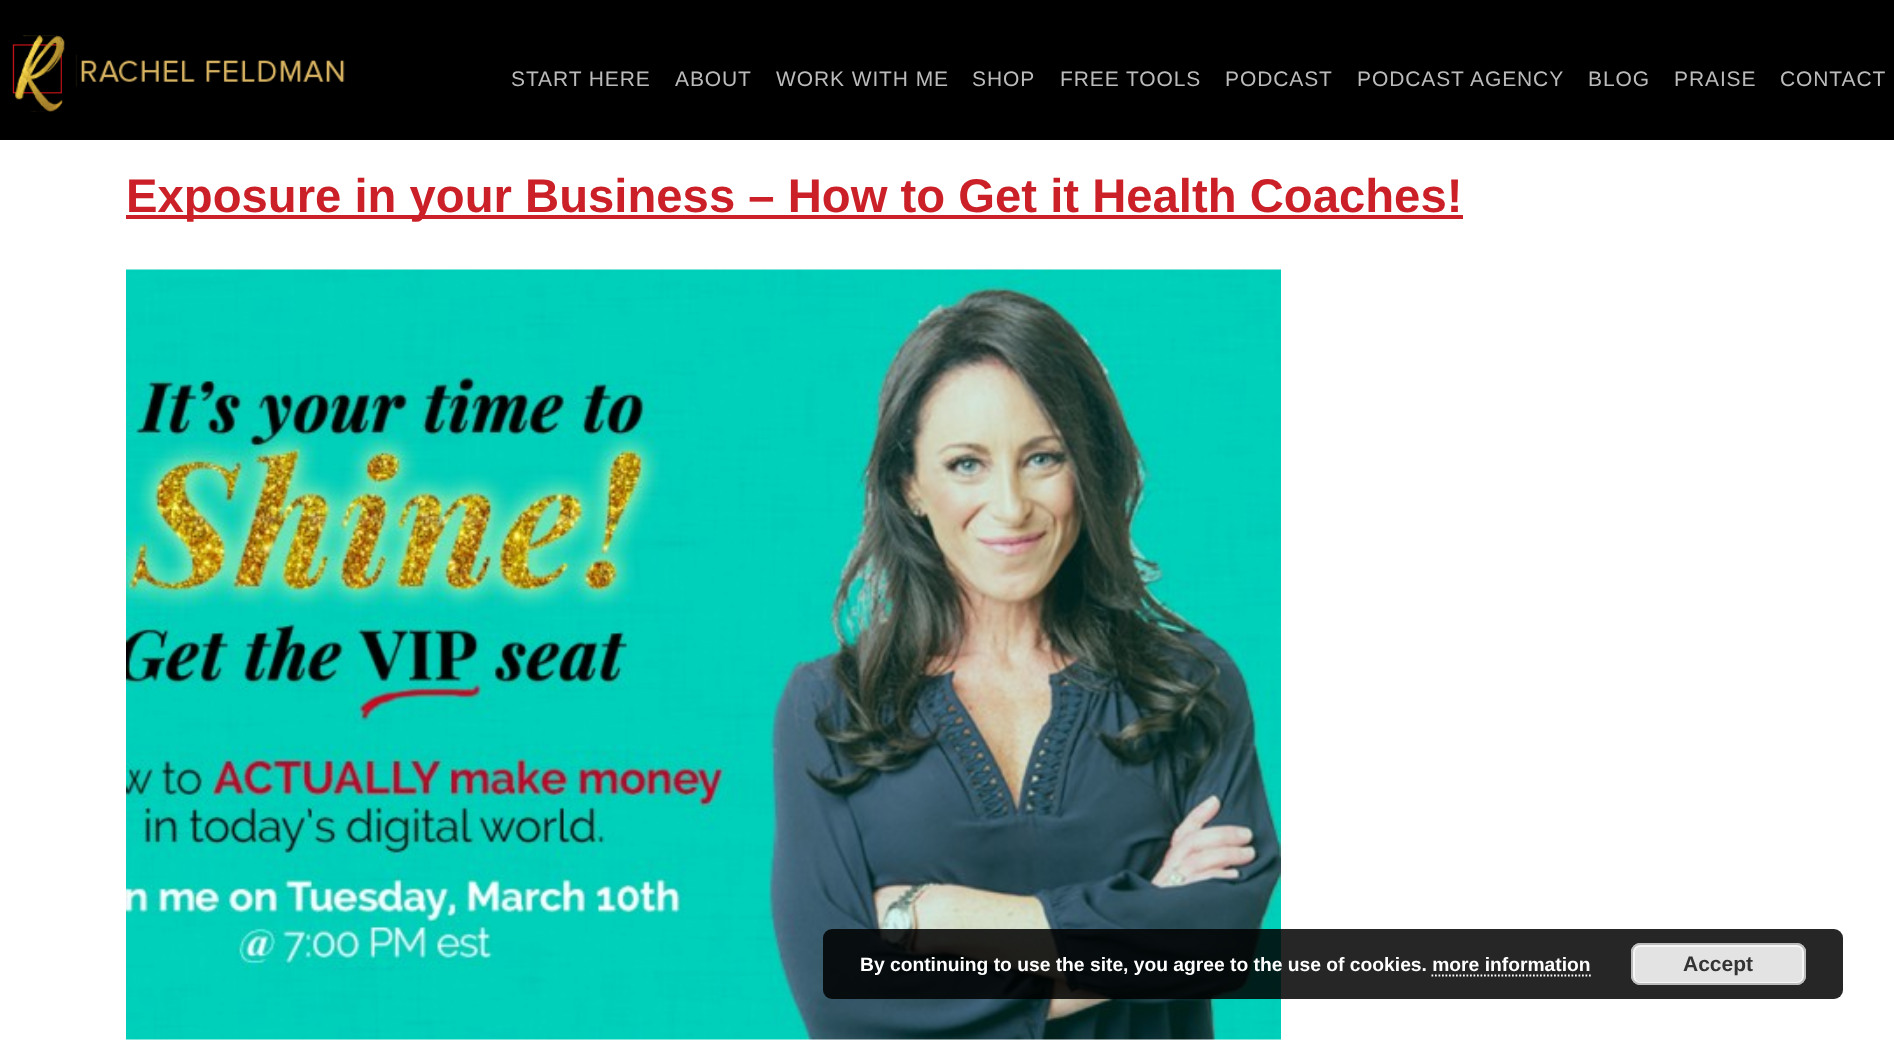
<!DOCTYPE html>
<meta charset="utf-8">
<style>body { margin: 0 } canvas { display: block }</style>
<canvas id="canvas" width="1894" height="1051"></canvas>
<script type="module">
  const canvas = document.getElementById("canvas");
  const ctx = canvas.getContext("2d");
  ctx.miterLimit = 4;
  ctx.fontKerning = "normal";
  async function loadImage(src) {
    const img = new Image();
    img.src = src;
    await img.decode();
    return img;
  }

  ctx.fillStyle = "#ffffff";
  ctx.fillRect(0, 0, 1894, 1051);
  ctx.fillStyle = "#000000";
  ctx.fillRect(0, 0, 1894, 140);
  ctx.drawImage(await loadImage("img1.png"), 12, 35, 333, 77);
  ctx.letterSpacing = "0.9px";
  ctx.font = "21px Liberation Sans";
  ctx.fillStyle = "#bbbbbb";
  ctx.fillText("START HERE", 511, 86);
  ctx.fillText("ABOUT", 675, 86);
  ctx.fillText("WORK WITH ME", 776, 86);
  ctx.fillText("SHOP", 972, 86);
  ctx.fillText("FREE TOOLS", 1060, 86);
  ctx.fillText("PODCAST", 1225, 86);
  ctx.fillText("PODCAST AGENCY", 1357, 86);
  ctx.fillText("BLOG", 1588, 86);
  ctx.fillText("PRAISE", 1674, 86);
  ctx.fillText("CONTACT", 1780, 86);
  ctx.fillStyle = "#cb2028";
  ctx.fillRect(126, 215, 1337, 4);
  ctx.letterSpacing = "0px";
  ctx.font = "bold 47.25px Liberation Sans";
  ctx.fillText("Exposure in your Business – How to Get it Health Coaches!", 126, 212);
  ctx.drawImage(await loadImage("img2.png"), 126, 269, 1155, 771);
  ctx.fillStyle = "rgba(0, 0, 0, 0.85)";
  ctx.beginPath();
  ctx.roundRect(823, 929, 1020, 70, 9);
  ctx.fill();
  ctx.font = "bold 19.25px Liberation Sans";
  ctx.fillStyle = "#ffffff";
  ctx.fillText("By continuing to use the site, you agree to the use of cookies. more information", 860, 971);
  ctx.fillStyle = "#e3e3e3";
  ctx.beginPath();
  ctx.roundRect(1631, 943, 175, 42, 9);
  ctx.fill();
  ctx.beginPath();
  ctx.roundRect(1634, 946, 169, 37, 6);
  ctx.strokeStyle = "#f6f6f6";
  ctx.lineWidth = 2;
  ctx.stroke();
  ctx.beginPath();
  ctx.roundRect(1632, 944, 173, 40, 8);
  ctx.strokeStyle = "#bbbbbb";
  ctx.stroke();
  ctx.font = "bold 21px Liberation Sans";
  ctx.fillStyle = "#333333";
  ctx.fillText("Accept", 1683, 971);
  ctx.beginPath();
  ctx.moveTo(1431.5, 975.5);
  ctx.lineTo(1591, 975.5);
  ctx.strokeStyle = "#ffffff";
  ctx.lineWidth = 1.8;
  ctx.setLineDash([1.75, 1.75]);
  ctx.stroke();
</script>
